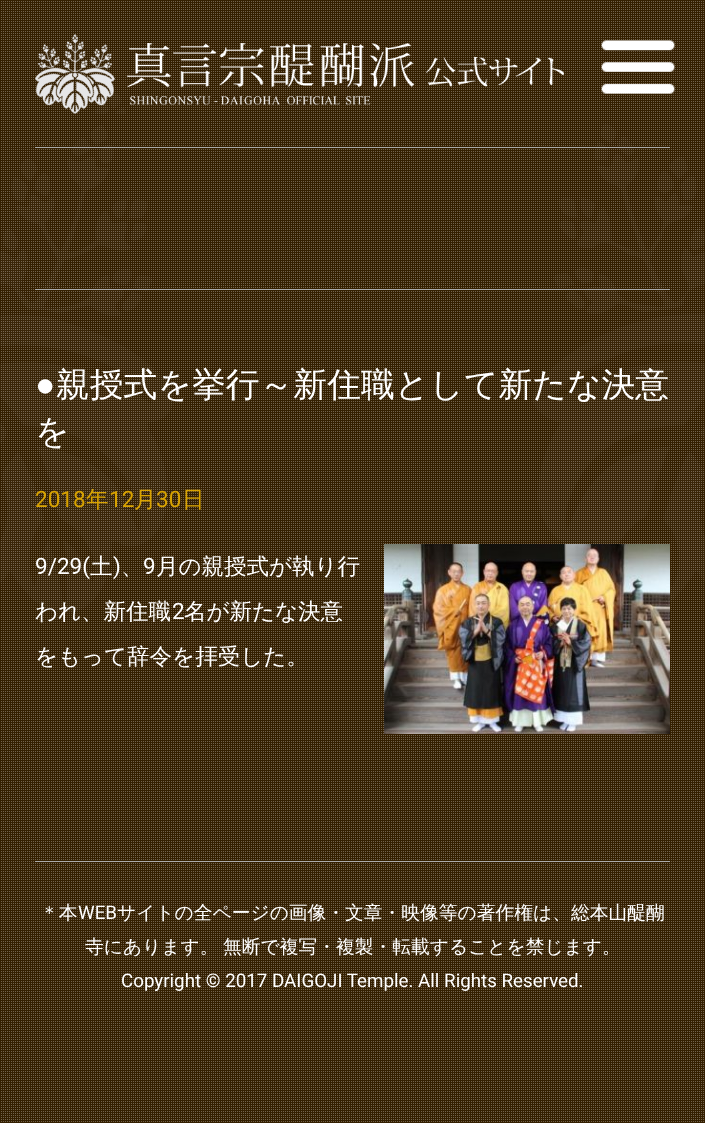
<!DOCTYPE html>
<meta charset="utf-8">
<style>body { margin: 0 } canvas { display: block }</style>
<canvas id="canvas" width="705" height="1123"></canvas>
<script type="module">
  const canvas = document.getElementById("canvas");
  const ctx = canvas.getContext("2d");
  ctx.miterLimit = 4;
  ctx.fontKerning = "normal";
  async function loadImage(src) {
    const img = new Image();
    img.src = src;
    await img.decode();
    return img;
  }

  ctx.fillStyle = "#341f00";
  ctx.fillRect(0, 0, 705, 1123);
  ctx.drawImage(await loadImage("img1.png"), 0, 1, 705, 1121);
  ctx.drawImage(await loadImage("img2.png"), 35, 34, 529, 80);
  ctx.drawImage(await loadImage("img3.png"), 601, 40, 74, 54);
  ctx.fillStyle = "#aaaaaa";
  ctx.fillRect(35, 147, 635, 1);
  ctx.fillRect(35, 289, 635, 1);
  ctx.font = "33.8px Liberation Sans";
  ctx.fillStyle = "#ffffff";
  ctx.fillText("●", 35, 396);
  ctx.font = "500 33.8px WenQuanYi Zen Hei";
  ctx.fillText("親授式を挙行～新住職として新たな決意", 56, 396);
  ctx.fillText("を", 35, 443);
  ctx.font = "22.5px Roboto";
  ctx.fillStyle = "#d9a300";
  ctx.fillText("2018", 35, 507);
  ctx.font = "500 22.5px WenQuanYi Zen Hei";
  ctx.fillText("年", 86, 507);
  ctx.font = "22.5px Roboto";
  ctx.fillText("12", 109, 507);
  ctx.font = "500 22.5px WenQuanYi Zen Hei";
  ctx.fillText("月", 134, 507);
  ctx.font = "22.5px Roboto";
  ctx.fillText("30", 156, 507);
  ctx.font = "500 22.5px WenQuanYi Zen Hei";
  ctx.fillText("日", 182, 507);
  ctx.font = "22.5px Roboto";
  ctx.fillStyle = "#ffffff";
  ctx.fillText("9/29(", 35, 574);
  ctx.font = "500 22.5px WenQuanYi Zen Hei";
  ctx.fillText("土", 90, 574);
  ctx.font = "22.5px Roboto";
  ctx.fillText(")", 113, 574);
  ctx.fillText("9", 143, 574);
  ctx.font = "500 22.5px WenQuanYi Zen Hei";
  ctx.fillText("月の親授式が執り行", 156, 574);
  ctx.fillText("、", 121, 574);
  ctx.fillText("われ、新住職", 35, 619);
  ctx.font = "22.5px Roboto";
  ctx.fillText("2", 172, 619);
  ctx.font = "500 22.5px WenQuanYi Zen Hei";
  ctx.fillText("名が新たな決意", 184, 619);
  ctx.fillText("をもって辞令を拝受した。", 35, 664);
  ctx.drawImage(await loadImage("img4.png"), 384, 544, 286, 190);
  ctx.fillStyle = "#aaaaaa";
  ctx.fillRect(35, 861, 635, 1);
  ctx.font = "500 18.75px WenQuanYi Zen Hei";
  ctx.fillStyle = "#ffffff";
  ctx.fillText("＊本", 40, 919);
  ctx.font = "18.75px Roboto";
  ctx.fillText("WEB", 78, 919);
  ctx.font = "500 18.75px WenQuanYi Zen Hei";
  ctx.fillText("サイトの全ページの画像・文章・映像等の著作権は、総本山醍醐", 117, 919);
  ctx.wordSpacing = "-1px";
  ctx.fillText("寺にあります。 無断で複写・複製・転載することを禁じます。", 85, 953);
  ctx.wordSpacing = "0px";
  ctx.font = "18.75px Roboto";
  ctx.fillText("Copyright © 2017 DAIGOJI Temple. All Rights Reserved.", 121, 987);
</script>
